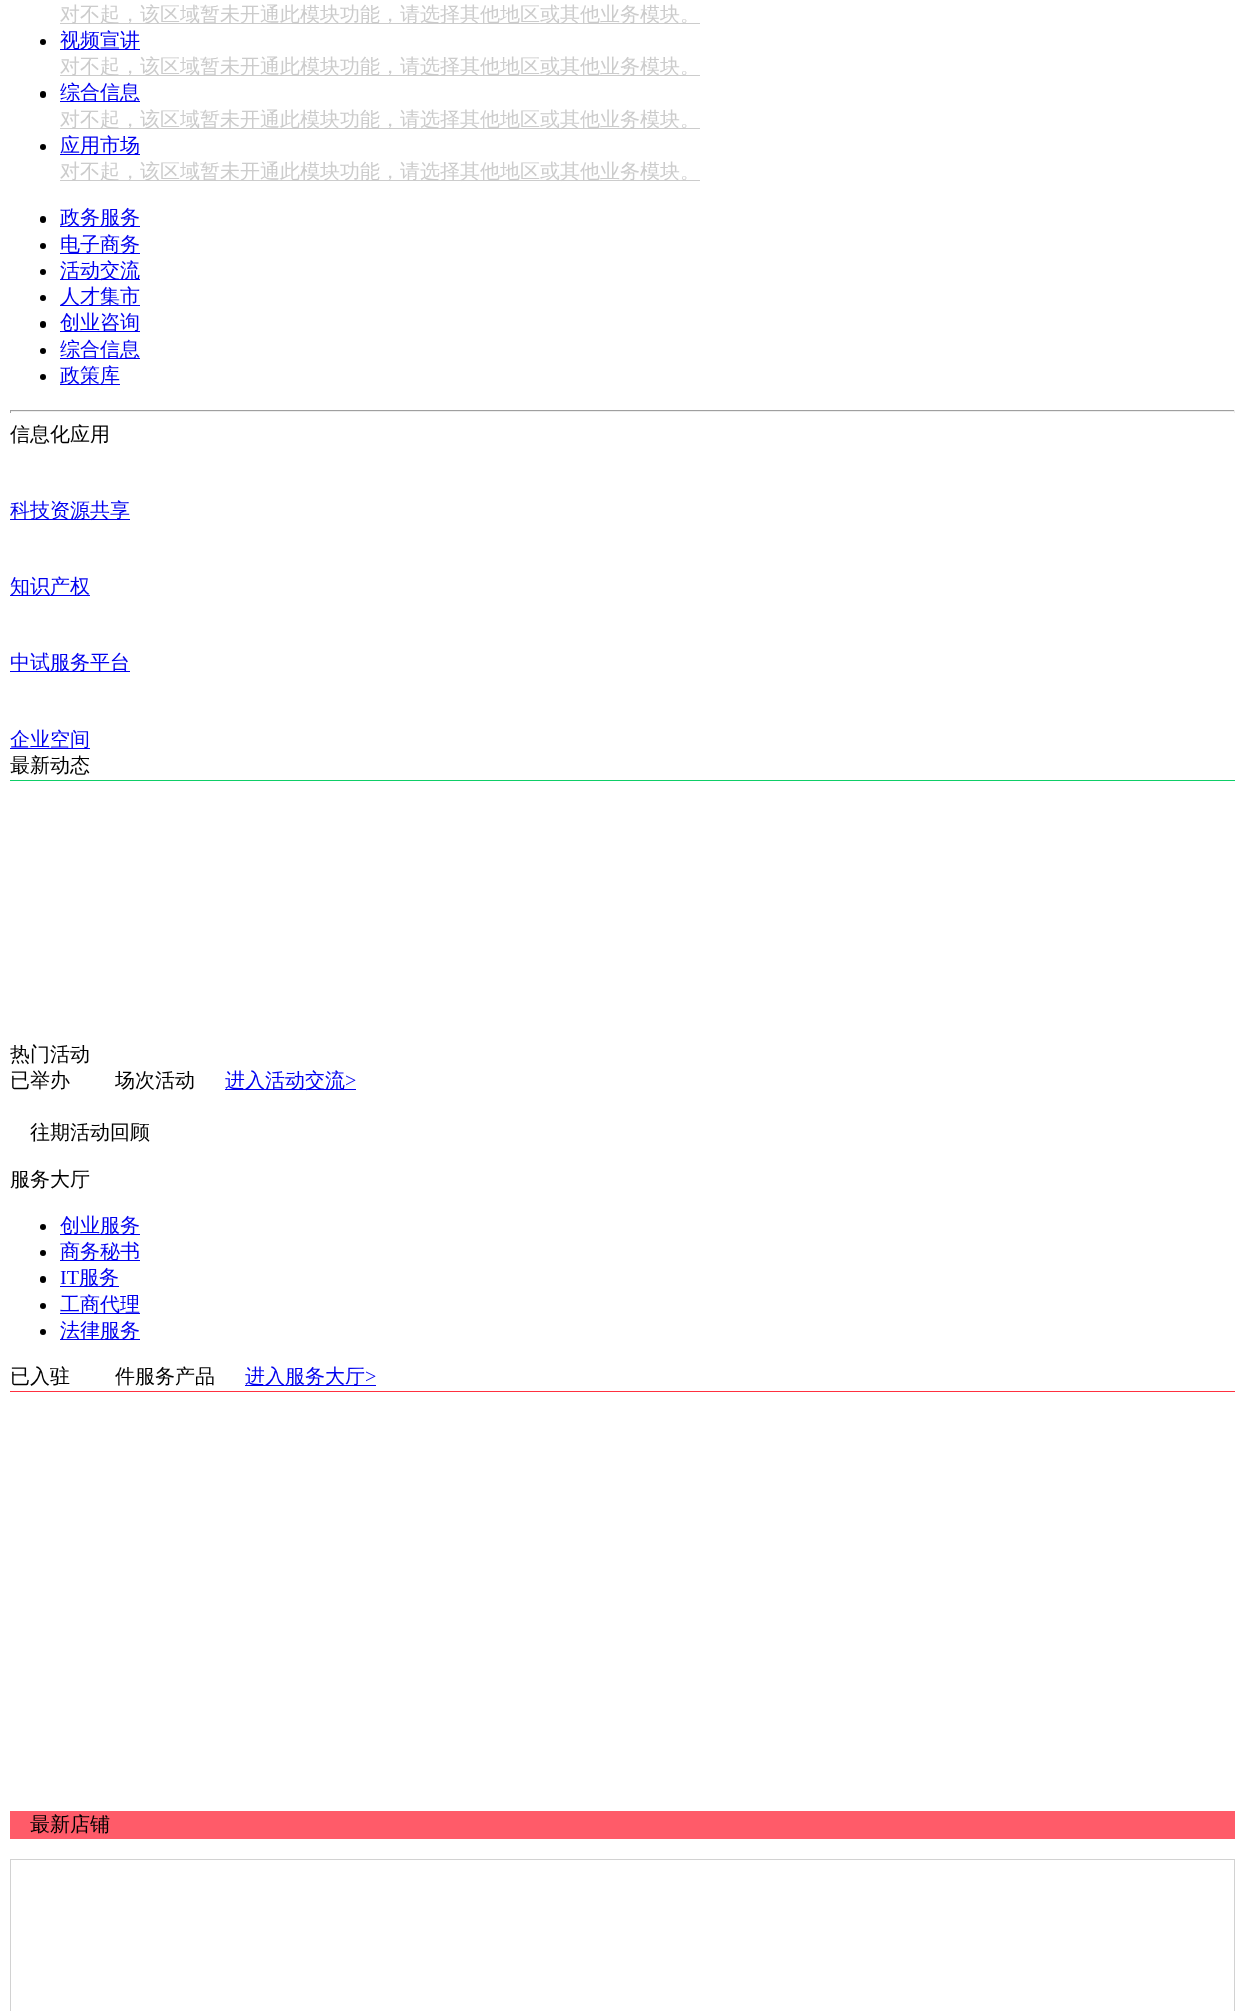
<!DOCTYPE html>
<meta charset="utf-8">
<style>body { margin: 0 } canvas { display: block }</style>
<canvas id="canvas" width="1244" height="2011"></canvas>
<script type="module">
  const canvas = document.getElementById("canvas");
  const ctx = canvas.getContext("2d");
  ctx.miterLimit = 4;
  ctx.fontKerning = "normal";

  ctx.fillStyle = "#ffffff";
  ctx.fillRect(0, 0, 1244, 2011);
  ctx.fillStyle = "#cccccc";
  ctx.fillRect(60, 23, 640, 1);
  ctx.font = "500 20px WenQuanYi Zen Hei";
  ctx.fillText("对不起，该区域暂未开通此模块功能，请选择其他地区或其他业务模块。", 60, 21);
  ctx.fillStyle = "#000000";
  ctx.beginPath();
  ctx.arc(43, 42, 3, 0, Math.PI * 2);
  ctx.fill();
  ctx.fillStyle = "#0000ee";
  ctx.fillRect(60, 49, 80, 1);
  ctx.fillText("视频宣讲", 60, 47);
  ctx.fillStyle = "#cccccc";
  ctx.fillRect(60, 75, 640, 1);
  ctx.fillText("对不起，该区域暂未开通此模块功能，请选择其他地区或其他业务模块。", 60, 73);
  ctx.fillStyle = "#000000";
  ctx.beginPath();
  ctx.roundRect(40, 91, 6, 7, 3);
  ctx.fill();
  ctx.fillStyle = "#0000ee";
  ctx.fillRect(60, 101, 80, 1);
  ctx.fillText("综合信息", 60, 99);
  ctx.fillStyle = "#cccccc";
  ctx.fillRect(60, 128, 640, 1);
  ctx.fillText("对不起，该区域暂未开通此模块功能，请选择其他地区或其他业务模块。", 60, 126);
  ctx.fillStyle = "#000000";
  ctx.beginPath();
  ctx.arc(43, 147, 3, 0, Math.PI * 2);
  ctx.fill();
  ctx.fillStyle = "#0000ee";
  ctx.fillRect(60, 154, 80, 1);
  ctx.fillText("应用市场", 60, 152);
  ctx.fillStyle = "#cccccc";
  ctx.fillRect(60, 180, 640, 1);
  ctx.fillText("对不起，该区域暂未开通此模块功能，请选择其他地区或其他业务模块。", 60, 178);
  ctx.fillStyle = "#000000";
  ctx.beginPath();
  ctx.roundRect(40, 216, 6, 7, 3);
  ctx.fill();
  ctx.fillStyle = "#0000ee";
  ctx.fillRect(60, 226, 80, 1);
  ctx.fillText("政务服务", 60, 224);
  ctx.fillStyle = "#000000";
  ctx.beginPath();
  ctx.arc(43, 246, 3, 0, Math.PI * 2);
  ctx.fill();
  ctx.fillStyle = "#0000ee";
  ctx.fillRect(60, 253, 80, 1);
  ctx.fillText("电子商务", 60, 251);
  ctx.fillStyle = "#000000";
  ctx.beginPath();
  ctx.arc(43, 272, 3, 0, Math.PI * 2);
  ctx.fill();
  ctx.fillStyle = "#0000ee";
  ctx.fillRect(60, 279, 80, 1);
  ctx.fillText("活动交流", 60, 277);
  ctx.fillStyle = "#000000";
  ctx.beginPath();
  ctx.arc(43, 298, 3, 0, Math.PI * 2);
  ctx.fill();
  ctx.fillStyle = "#0000ee";
  ctx.fillRect(60, 305, 80, 1);
  ctx.fillText("人才集市", 60, 303);
  ctx.fillStyle = "#000000";
  ctx.beginPath();
  ctx.roundRect(40, 321, 6, 7, 3);
  ctx.fill();
  ctx.fillStyle = "#0000ee";
  ctx.fillRect(60, 331, 80, 1);
  ctx.fillText("创业咨询", 60, 329);
  ctx.fillStyle = "#000000";
  ctx.beginPath();
  ctx.arc(43, 351, 3, 0, Math.PI * 2);
  ctx.fill();
  ctx.fillStyle = "#0000ee";
  ctx.fillRect(60, 358, 80, 1);
  ctx.fillText("综合信息", 60, 356);
  ctx.fillStyle = "#000000";
  ctx.beginPath();
  ctx.arc(43, 377, 3, 0, Math.PI * 2);
  ctx.fill();
  ctx.fillStyle = "#0000ee";
  ctx.fillRect(60, 384, 60, 1);
  ctx.fillText("政策库", 60, 382);
  ctx.fillStyle = "#9f9f9f";
  ctx.fillRect(10, 410, 1225, 1);
  ctx.fillStyle = "#eeeeee";
  ctx.fillRect(1234, 410, 1, 3);
  ctx.fillRect(10, 411, 1225, 1);
  ctx.fillStyle = "#9f9f9f";
  ctx.fillRect(10, 410, 1, 3);
  ctx.fillStyle = "#000000";
  ctx.fillText("信息化应用", 10, 441);
  ctx.fillStyle = "#0000ee";
  ctx.fillRect(10, 519, 120, 1);
  ctx.fillText("科技资源共享", 10, 517);
  ctx.fillRect(10, 595, 80, 1);
  ctx.fillText("知识产权", 10, 593);
  ctx.fillRect(10, 671, 120, 1);
  ctx.fillText("中试服务平台", 10, 669);
  ctx.fillRect(10, 748, 80, 1);
  ctx.fillText("企业空间", 10, 746);
  ctx.fillStyle = "#0ece67";
  ctx.fillRect(10, 780, 1225, 1);
  ctx.fillStyle = "#000000";
  ctx.fillText("最新动态", 10, 772);
  ctx.fillText("热门活动", 10, 1061);
  ctx.fillText("已举办", 10, 1087);
  ctx.fillText("场次活动", 115, 1087);
  ctx.fillStyle = "#0000ee";
  ctx.fillRect(225, 1089, 131, 1);
  ctx.fillText("进入活动交流", 225, 1087);
  ctx.font = "20px Liberation Serif";
  ctx.fillText(">", 345, 1087);
  ctx.font = "500 20px WenQuanYi Zen Hei";
  ctx.fillStyle = "#000000";
  ctx.fillText("往期活动回顾", 30, 1139);
  ctx.fillStyle = "#ff3040";
  ctx.fillRect(10, 1391, 1225, 1);
  ctx.fillStyle = "#000000";
  ctx.fillText("服务大厅", 10, 1186);
  ctx.beginPath();
  ctx.arc(43, 1227, 3, 0, Math.PI * 2);
  ctx.fill();
  ctx.fillStyle = "#0000ee";
  ctx.fillRect(60, 1234, 80, 1);
  ctx.fillText("创业服务", 60, 1232);
  ctx.fillStyle = "#000000";
  ctx.beginPath();
  ctx.arc(43, 1253, 3, 0, Math.PI * 2);
  ctx.fill();
  ctx.fillStyle = "#0000ee";
  ctx.fillRect(60, 1260, 80, 1);
  ctx.fillText("商务秘书", 60, 1258);
  ctx.fillStyle = "#000000";
  ctx.beginPath();
  ctx.roundRect(40, 1276, 6, 7, 3);
  ctx.fill();
  ctx.font = "20px Liberation Serif";
  ctx.fillStyle = "#0000ee";
  ctx.fillText("IT", 60, 1284);
  ctx.fillRect(60, 1286, 59, 1);
  ctx.font = "500 20px WenQuanYi Zen Hei";
  ctx.fillText("服务", 79, 1284);
  ctx.fillStyle = "#000000";
  ctx.beginPath();
  ctx.arc(43, 1306, 3, 0, Math.PI * 2);
  ctx.fill();
  ctx.fillStyle = "#0000ee";
  ctx.fillRect(60, 1313, 80, 1);
  ctx.fillText("工商代理", 60, 1311);
  ctx.fillStyle = "#000000";
  ctx.beginPath();
  ctx.arc(43, 1332, 3, 0, Math.PI * 2);
  ctx.fill();
  ctx.fillStyle = "#0000ee";
  ctx.fillRect(60, 1339, 80, 1);
  ctx.fillText("法律服务", 60, 1337);
  ctx.fillStyle = "#000000";
  ctx.fillText("已入驻", 10, 1383);
  ctx.fillText("件服务产品", 115, 1383);
  ctx.fillStyle = "#0000ee";
  ctx.fillRect(245, 1385, 131, 1);
  ctx.fillText("进入服务大厅", 245, 1383);
  ctx.font = "20px Liberation Serif";
  ctx.fillText(">", 365, 1383);
  ctx.fillStyle = "#ff5b69";
  ctx.fillRect(10, 1811, 1225, 28);
  ctx.font = "500 20px WenQuanYi Zen Hei";
  ctx.fillStyle = "#000000";
  ctx.fillText("最新店铺", 30, 1831);
  ctx.strokeStyle = "#d2d2d2";
  ctx.strokeRect(10.5, 1859.5, 1224, 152);
</script>
